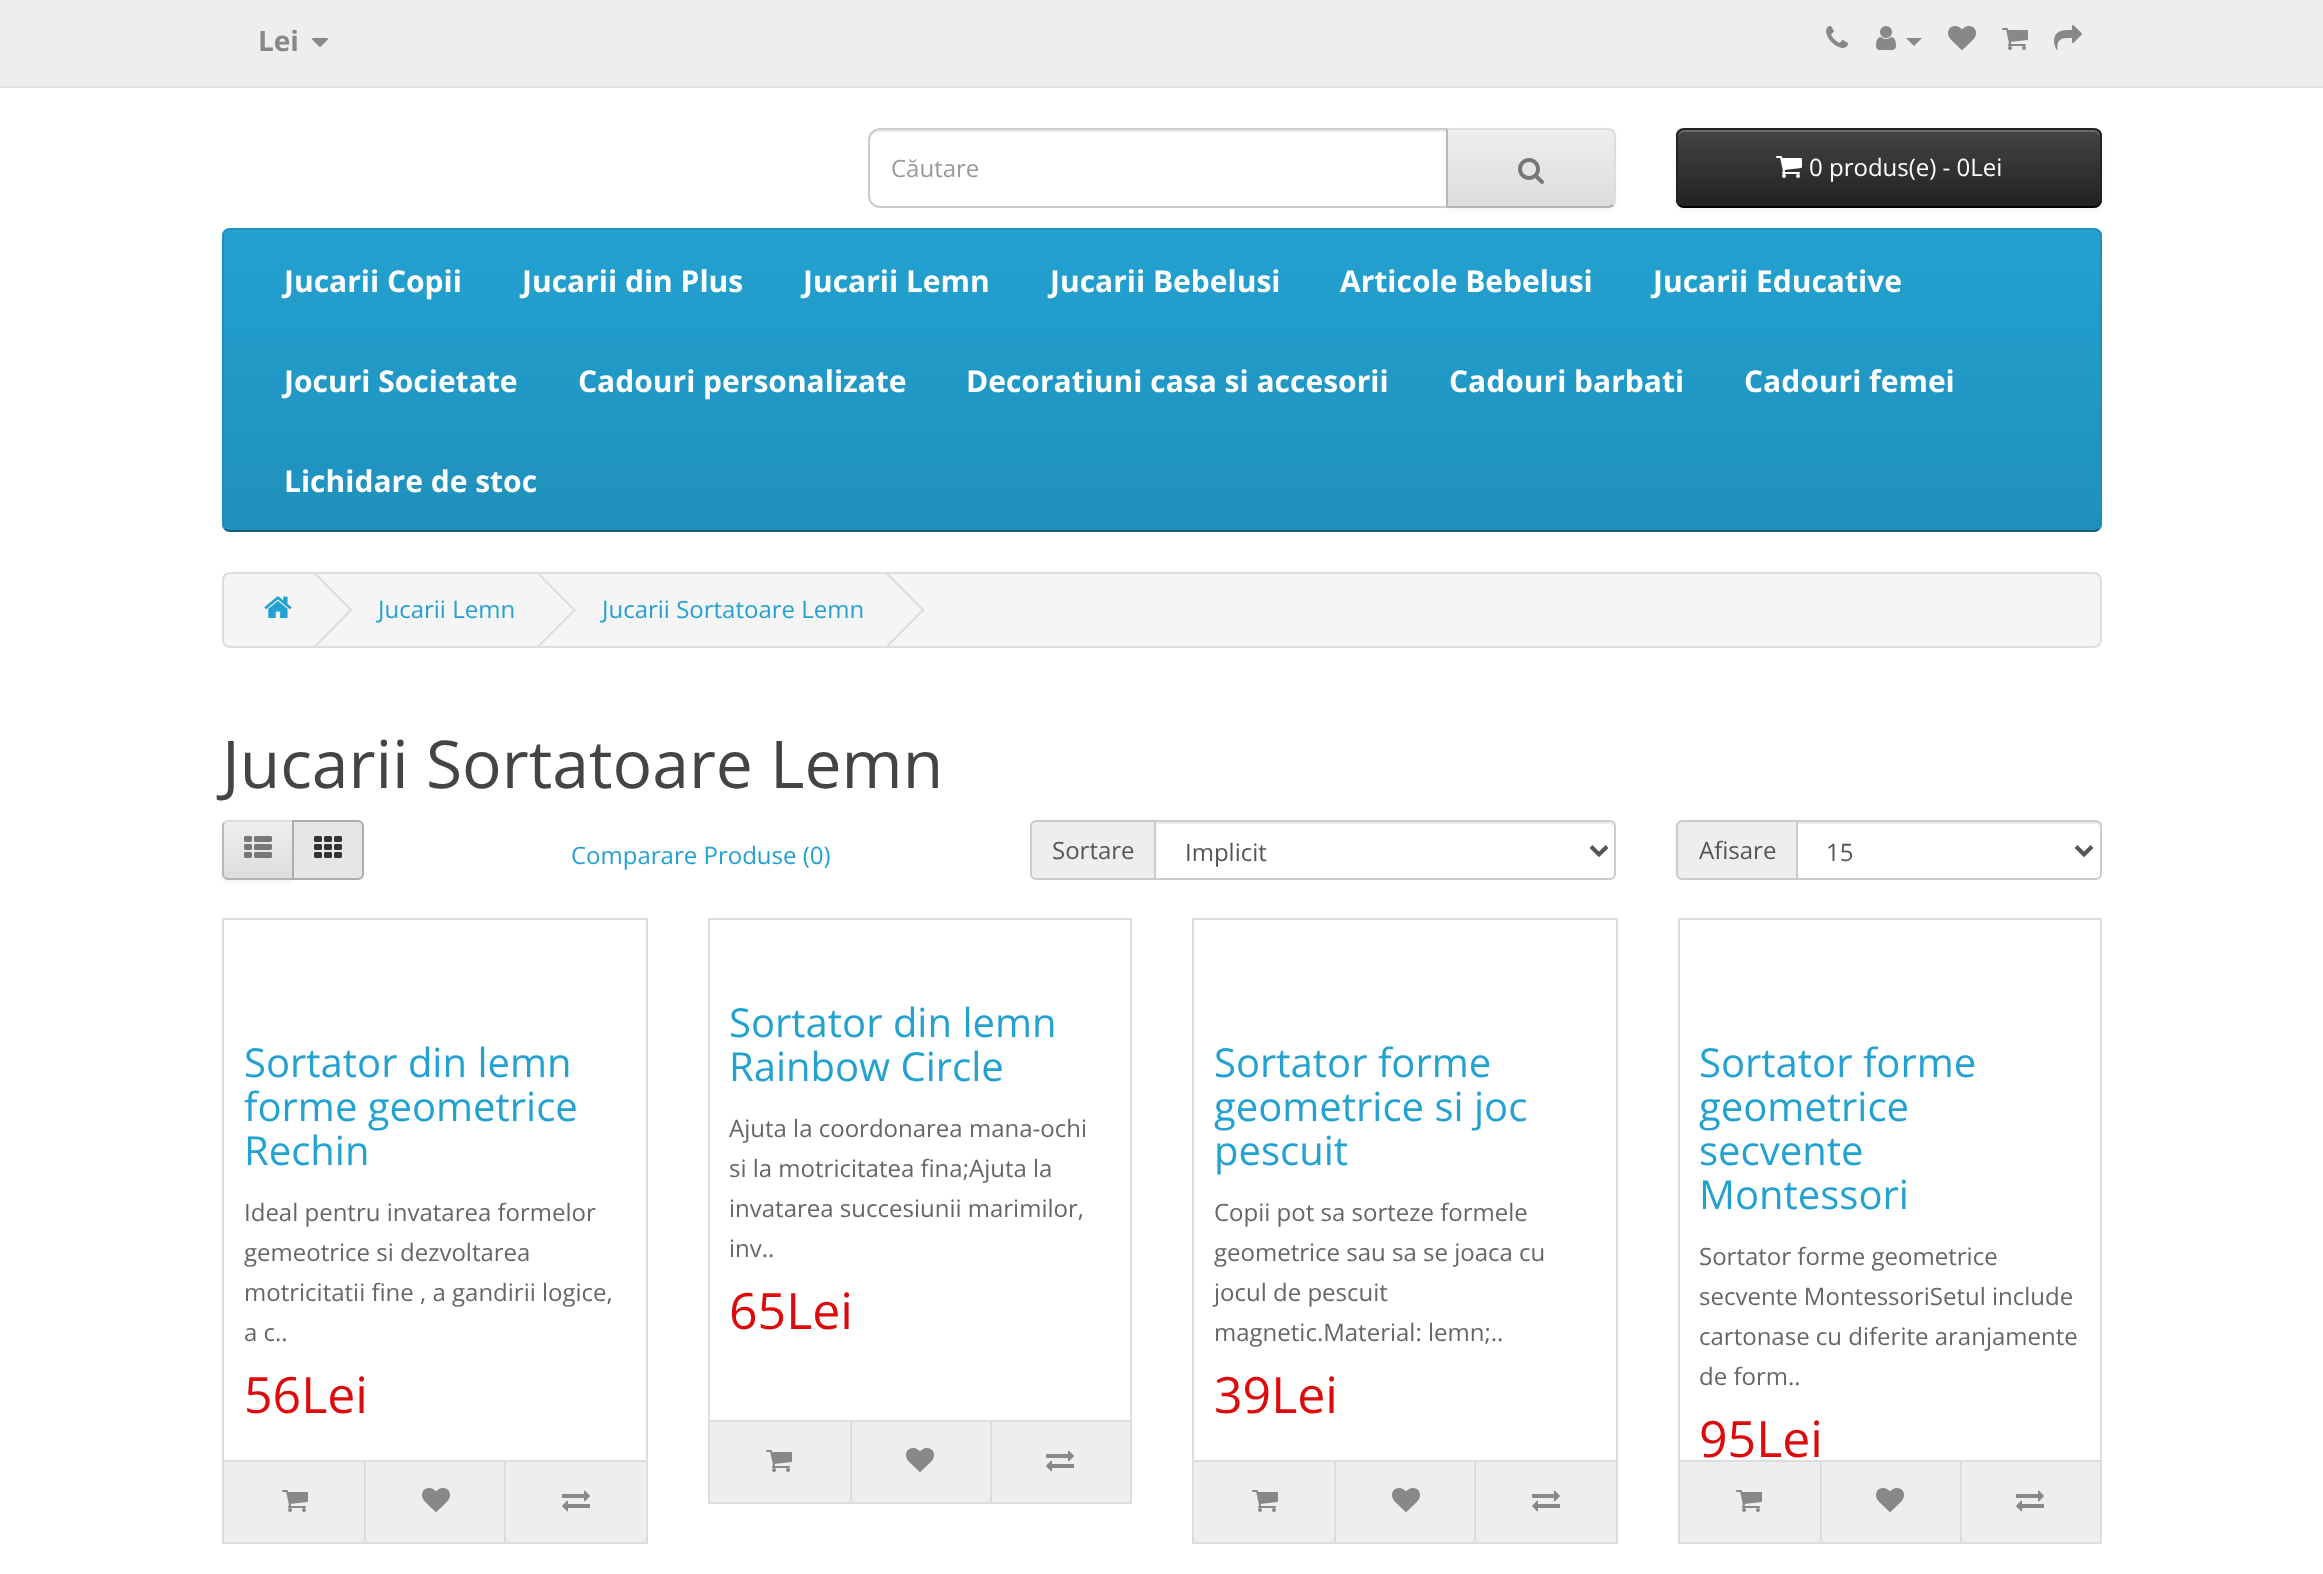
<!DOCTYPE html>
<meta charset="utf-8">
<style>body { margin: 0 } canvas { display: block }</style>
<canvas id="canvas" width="2323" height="1574"></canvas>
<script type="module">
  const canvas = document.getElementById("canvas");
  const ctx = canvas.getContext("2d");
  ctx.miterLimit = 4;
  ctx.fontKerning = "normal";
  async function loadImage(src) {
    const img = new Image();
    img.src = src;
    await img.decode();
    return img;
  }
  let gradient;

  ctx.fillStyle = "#ffffff";
  ctx.fillRect(0, 0, 2323, 1574);
  ctx.fillStyle = "#eeeeee";
  ctx.fillRect(0, 0, 2323, 86);
  ctx.fillStyle = "#e2e2e2";
  ctx.fillRect(0, 86, 2323, 2);
  ctx.font = "bold 28px Open Sans";
  ctx.fillStyle = "#888888";
  ctx.fillText("Lei", 258, 51);
  ctx.drawImage(await loadImage("img1.png"), 312, 38, 16, 9);
  ctx.drawImage(await loadImage("img2.png"), 1826, 26, 22, 22);
  ctx.drawImage(await loadImage("img3.png"), 1876, 26, 20, 24);
  ctx.beginPath();
  ctx.moveTo(1906, 38);
  ctx.lineTo(1922, 38);
  ctx.lineTo(1914, 46);
  ctx.closePath();
  ctx.fill();
  ctx.drawImage(await loadImage("img4.png"), 1948, 26, 28, 24);
  ctx.drawImage(await loadImage("img5.png"), 2002, 28, 26, 22);
  ctx.drawImage(await loadImage("img6.png"), 2054, 25, 28, 25);
  ctx.fillStyle = "#ececec";
  ctx.beginPath();
  ctx.moveTo(880, 132);
  ctx.lineTo(1446, 132);
  ctx.lineTo(1446, 130);
  ctx.lineTo(880, 130);
  ctx.bezierCurveTo(874, 130, 870, 134, 870, 140);
  ctx.lineTo(870, 142);
  ctx.bezierCurveTo(870, 136, 874, 132, 880, 132);
  ctx.closePath();
  ctx.fill();
  ctx.beginPath();
  ctx.roundRect(869, 129, 578, 78, [11, 0, 0, 11]);
  ctx.strokeStyle = "#cccccc";
  ctx.lineWidth = 2;
  ctx.stroke();
  ctx.font = "24px Open Sans";
  ctx.fillStyle = "#999999";
  ctx.fillText("Căutare", 891, 177);
  ctx.fillStyle = "rgba(0, 0, 0, 0.05)";
  ctx.filter = "blur(2px)";
  ctx.beginPath();
  ctx.roundRect(1446, 130, 170, 80, 8);
  ctx.fill();
  ctx.filter = "none";
  ctx.save();
  ctx.beginPath();
  ctx.roundRect(1446, 128, 170, 80, [0, 8, 8, 0]);
  ctx.clip();
  gradient = ctx.createLinearGradient(1531, 130, 1531, 206);
  gradient.addColorStop(0, "#eeeeee");
  gradient.addColorStop(1, "#dddddd");
  ctx.fillStyle = gradient;
  ctx.fillRect(1448, 130, 168, 76);
  ctx.restore();
  ctx.fillStyle = "#f1f1f1";
  ctx.beginPath();
  ctx.moveTo(1448, 132);
  ctx.lineTo(1608, 132);
  ctx.bezierCurveTo(1611, 132, 1614, 135, 1614, 138);
  ctx.lineTo(1614, 136);
  ctx.bezierCurveTo(1614, 133, 1611, 130, 1608, 130);
  ctx.lineTo(1448, 130);
  ctx.closePath();
  ctx.fill();
  ctx.fillStyle = "#dddddd";
  ctx.beginPath();
  ctx.moveTo(1446, 128);
  ctx.lineTo(1448, 130);
  ctx.lineTo(1609, 130);
  ctx.lineTo(1612, 132);
  ctx.lineTo(1614, 130);
  ctx.bezierCurveTo(1612, 129, 1610, 128, 1608, 128);
  ctx.closePath();
  ctx.fill();
  ctx.beginPath();
  ctx.moveTo(1616, 200);
  ctx.lineTo(1616, 136);
  ctx.bezierCurveTo(1616, 134, 1615, 132, 1614, 130);
  ctx.lineTo(1612, 132);
  ctx.bezierCurveTo(1613, 133, 1614, 134, 1614, 136);
  ctx.lineTo(1614, 200);
  ctx.bezierCurveTo(1614, 202, 1613, 203, 1612, 204);
  ctx.lineTo(1614, 206);
  ctx.bezierCurveTo(1615, 204, 1616, 202, 1616, 200);
  ctx.closePath();
  ctx.fill();
  ctx.fillStyle = "#b3b3b3";
  ctx.beginPath();
  ctx.moveTo(1608, 208);
  ctx.bezierCurveTo(1610, 208, 1612, 207, 1614, 206);
  ctx.lineTo(1612, 204);
  ctx.lineTo(1609, 206);
  ctx.lineTo(1448, 206);
  ctx.lineTo(1446, 208);
  ctx.closePath();
  ctx.fill();
  ctx.fillStyle = "#b7b7b7";
  ctx.beginPath();
  ctx.moveTo(1446, 128);
  ctx.lineTo(1446, 208);
  ctx.lineTo(1448, 206);
  ctx.lineTo(1448, 130);
  ctx.closePath();
  ctx.fill();
  ctx.drawImage(await loadImage("img7.png"), 1518, 158, 26, 26);
  ctx.fillStyle = "rgba(0, 0, 0, 0.05)";
  ctx.filter = "blur(2px)";
  ctx.beginPath();
  ctx.roundRect(1676, 130, 426, 80, 8);
  ctx.fill();
  ctx.filter = "none";
  ctx.save();
  ctx.beginPath();
  ctx.roundRect(1676, 128, 426, 80, 8);
  ctx.clip();
  gradient = ctx.createLinearGradient(1889, 130, 1889, 206);
  gradient.addColorStop(0, "#444444");
  gradient.addColorStop(1, "#222222");
  ctx.fillStyle = gradient;
  ctx.fillRect(1676, 130, 426, 76);
  ctx.restore();
  ctx.fillStyle = "#696969";
  ctx.beginPath();
  ctx.moveTo(1684, 132);
  ctx.lineTo(2094, 132);
  ctx.bezierCurveTo(2097, 132, 2100, 135, 2100, 138);
  ctx.lineTo(2100, 136);
  ctx.bezierCurveTo(2100, 133, 2097, 130, 2094, 130);
  ctx.lineTo(1684, 130);
  ctx.bezierCurveTo(1681, 130, 1678, 133, 1678, 136);
  ctx.lineTo(1678, 138);
  ctx.bezierCurveTo(1678, 135, 1681, 132, 1684, 132);
  ctx.closePath();
  ctx.fill();
  ctx.beginPath();
  ctx.moveTo(2099, 205);
  ctx.bezierCurveTo(2097.5, 206.5, 2096, 207, 2094, 207);
  ctx.lineTo(1684, 207);
  ctx.bezierCurveTo(1682, 207, 1680.5, 206.5, 1679, 205);
  ctx.strokeStyle = "#000000";
  ctx.stroke();
  ctx.beginPath();
  ctx.moveTo(1679, 205);
  ctx.bezierCurveTo(1677.5, 203.5, 1677, 202, 1677, 200);
  ctx.lineTo(1677, 136);
  ctx.bezierCurveTo(1677, 134, 1677.5, 132.5, 1679, 131);
  ctx.bezierCurveTo(1680.5, 129.5, 1682, 129, 1684, 129);
  ctx.lineTo(2094, 129);
  ctx.bezierCurveTo(2096, 129, 2097.5, 129.5, 2099, 131);
  ctx.bezierCurveTo(2100.5, 132.5, 2101, 134, 2101, 136);
  ctx.lineTo(2101, 200);
  ctx.bezierCurveTo(2101, 202, 2100.5, 203.5, 2099, 205);
  ctx.strokeStyle = "#222222";
  ctx.stroke();
  ctx.drawImage(await loadImage("img8.png"), 1776, 156, 26, 22);
  ctx.fillStyle = "#ffffff";
  ctx.fillText("0 produs(e) - 0Lei", 1809, 176);
  ctx.save();
  ctx.beginPath();
  ctx.roundRect(222, 228, 1880, 304, 8);
  ctx.clip();
  gradient = ctx.createLinearGradient(1162, 230, 1162, 530);
  gradient.addColorStop(0, "#23a1d1");
  gradient.addColorStop(1, "#1f90bb");
  ctx.fillStyle = gradient;
  ctx.fillRect(222, 230, 1880, 300);
  ctx.restore();
  ctx.beginPath();
  ctx.moveTo(2099, 529);
  ctx.bezierCurveTo(2097.5, 530.5, 2096, 531, 2094, 531);
  ctx.lineTo(230, 531);
  ctx.bezierCurveTo(228, 531, 226.5, 530.5, 225, 529);
  ctx.strokeStyle = "#145e7a";
  ctx.stroke();
  ctx.beginPath();
  ctx.moveTo(225, 529);
  ctx.bezierCurveTo(223.5, 527.5, 223, 526, 223, 524);
  ctx.lineTo(223, 236);
  ctx.bezierCurveTo(223, 234, 223.5, 232.5, 225, 231);
  ctx.bezierCurveTo(226.5, 229.5, 228, 229, 230, 229);
  ctx.lineTo(2094, 229);
  ctx.bezierCurveTo(2096, 229, 2097.5, 229.5, 2099, 231);
  ctx.bezierCurveTo(2100.5, 232.5, 2101, 234, 2101, 236);
  ctx.lineTo(2101, 524);
  ctx.bezierCurveTo(2101, 526, 2100.5, 527.5, 2099, 529);
  ctx.strokeStyle = "#1f90bb";
  ctx.stroke();
  ctx.font = "bold 30px Open Sans";
  ctx.fillText("Jucarii Copii", 284, 292);
  ctx.fillText("Jucarii din Plus", 522, 292);
  ctx.fillText("Jucarii Lemn", 803, 292);
  ctx.fillText("Jucarii Bebelusi", 1050, 292);
  ctx.fillText("Articole Bebelusi", 1340, 292);
  ctx.fillText("Jucarii Educative", 1653, 292);
  ctx.fillText("Jocuri Societate", 284, 392);
  ctx.fillText("Cadouri personalizate", 578, 392);
  ctx.fillText("Decoratiuni casa si accesorii", 966, 392);
  ctx.fillText("Cadouri barbati", 1449, 392);
  ctx.fillText("Cadouri femei", 1744, 392);
  ctx.fillText("Lichidare de stoc", 284, 492);
  ctx.fillStyle = "#f5f5f5";
  ctx.beginPath();
  ctx.roundRect(223, 573, 1878, 74, 7);
  ctx.fill();
  ctx.strokeStyle = "#dddddd";
  ctx.stroke();
  ctx.drawImage(await loadImage("img9.png"), 264, 596, 28, 22);
  ctx.fillStyle = "#dddddd";
  ctx.beginPath();
  ctx.moveTo(314.5, 574.5);
  ctx.lineTo(316, 573);
  ctx.lineTo(352.5, 610);
  ctx.lineTo(351, 611.5);
  ctx.closePath();
  ctx.fill();
  ctx.beginPath();
  ctx.moveTo(314.5, 645.5);
  ctx.lineTo(351, 608.5);
  ctx.lineTo(352.5, 610);
  ctx.lineTo(316, 647);
  ctx.closePath();
  ctx.fill();
  ctx.font = "24px Open Sans";
  ctx.fillStyle = "#23a1d1";
  ctx.fillText("Jucarii Lemn", 378, 618);
  ctx.fillStyle = "#dddddd";
  ctx.beginPath();
  ctx.moveTo(538, 574.5);
  ctx.lineTo(539, 573);
  ctx.lineTo(576, 610);
  ctx.lineTo(574.5, 611.5);
  ctx.closePath();
  ctx.fill();
  ctx.beginPath();
  ctx.moveTo(538, 645.5);
  ctx.lineTo(574.5, 608.5);
  ctx.lineTo(576, 610);
  ctx.lineTo(539, 647);
  ctx.closePath();
  ctx.fill();
  ctx.fillStyle = "#23a1d1";
  ctx.fillText("Jucarii Sortatoare Lemn", 602, 618);
  ctx.fillStyle = "#dddddd";
  ctx.beginPath();
  ctx.moveTo(886.5, 574.5);
  ctx.lineTo(888, 573);
  ctx.lineTo(924.5, 610);
  ctx.lineTo(923, 611.5);
  ctx.closePath();
  ctx.fill();
  ctx.beginPath();
  ctx.moveTo(886.5, 645.5);
  ctx.lineTo(923, 608.5);
  ctx.lineTo(924.5, 610);
  ctx.lineTo(888, 647);
  ctx.closePath();
  ctx.fill();
  ctx.font = "66px Open Sans";
  ctx.fillStyle = "#444444";
  ctx.fillText("Jucarii Sortatoare Lemn", 222, 788);
  ctx.fillStyle = "rgba(0, 0, 0, 0.05)";
  ctx.filter = "blur(2px)";
  ctx.beginPath();
  ctx.roundRect(222, 822, 72, 60, 6);
  ctx.fill();
  ctx.filter = "none";
  ctx.fillStyle = "#e7e7e7";
  ctx.beginPath();
  ctx.roundRect(222, 820, 72, 60, [6, 0, 0, 6]);
  ctx.fill();
  ctx.save();
  ctx.beginPath();
  ctx.roundRect(222, 820, 72, 60, [6, 0, 0, 6]);
  ctx.clip();
  gradient = ctx.createLinearGradient(258, 822, 258, 878);
  gradient.addColorStop(0, "#eeeeee");
  gradient.addColorStop(1, "#dddddd");
  ctx.fillStyle = gradient;
  ctx.fillRect(222, 822, 70, 56);
  ctx.restore();
  ctx.fillStyle = "#f1f1f1";
  ctx.beginPath();
  ctx.moveTo(228, 824);
  ctx.lineTo(292, 824);
  ctx.lineTo(292, 822);
  ctx.lineTo(228, 822);
  ctx.bezierCurveTo(226, 822, 224, 824, 224, 826);
  ctx.lineTo(224, 828);
  ctx.bezierCurveTo(224, 826, 226, 824, 228, 824);
  ctx.closePath();
  ctx.fill();
  ctx.fillStyle = "#dddddd";
  ctx.beginPath();
  ctx.moveTo(228, 820);
  ctx.bezierCurveTo(226, 820, 225, 821, 224, 822);
  ctx.lineTo(225, 823);
  ctx.lineTo(228, 822);
  ctx.lineTo(292, 822);
  ctx.lineTo(294, 820);
  ctx.closePath();
  ctx.fill();
  ctx.fillStyle = "#b3b3b3";
  ctx.beginPath();
  ctx.moveTo(294, 880);
  ctx.lineTo(292, 878);
  ctx.lineTo(228, 878);
  ctx.lineTo(225, 877);
  ctx.lineTo(224, 878);
  ctx.bezierCurveTo(225, 879, 226, 880, 228, 880);
  ctx.closePath();
  ctx.fill();
  ctx.fillStyle = "#b7b7b7";
  ctx.beginPath();
  ctx.moveTo(222, 826);
  ctx.lineTo(222, 874);
  ctx.bezierCurveTo(222, 876, 223, 877, 224, 878);
  ctx.lineTo(225, 877);
  ctx.bezierCurveTo(224, 876, 224, 875, 224, 874);
  ctx.lineTo(224, 826);
  ctx.bezierCurveTo(224, 825, 224, 824, 225, 823);
  ctx.lineTo(224, 822);
  ctx.bezierCurveTo(223, 823, 222, 824, 222, 826);
  ctx.closePath();
  ctx.fill();
  ctx.drawImage(await loadImage("img10.png"), 244, 836, 28, 22);
  ctx.fillStyle = "#e6e6e6";
  ctx.beginPath();
  ctx.roundRect(293, 821, 70, 58, [0, 5, 5, 0]);
  ctx.fill();
  ctx.strokeStyle = "#adadad";
  ctx.stroke();
  ctx.drawImage(await loadImage("img11.png"), 314, 836, 28, 22);
  ctx.font = "24px Open Sans";
  ctx.fillStyle = "#23a1d1";
  ctx.fillText("Comparare Produse (0)", 571, 864);
  ctx.fillStyle = "#eeeeee";
  ctx.beginPath();
  ctx.roundRect(1030, 820, 124, 60, [6, 0, 0, 6]);
  ctx.fill();
  ctx.fillStyle = "#cccccc";
  ctx.beginPath();
  ctx.moveTo(1036, 820);
  ctx.lineTo(1154, 820);
  ctx.lineTo(1154, 880);
  ctx.lineTo(1036, 880);
  ctx.bezierCurveTo(1033, 880, 1030, 877, 1030, 874);
  ctx.lineTo(1030, 826);
  ctx.bezierCurveTo(1030, 823, 1033, 820, 1036, 820);
  ctx.closePath();
  ctx.moveTo(1036, 822);
  ctx.lineTo(1154, 822);
  ctx.lineTo(1154, 878);
  ctx.lineTo(1036, 878);
  ctx.bezierCurveTo(1034, 878, 1032, 876, 1032, 874);
  ctx.lineTo(1032, 826);
  ctx.bezierCurveTo(1032, 824, 1034, 822, 1036, 822);
  ctx.closePath();
  ctx.fill("evenodd");
  ctx.fillStyle = "#555555";
  ctx.fillText("Sortare", 1052, 859);
  ctx.fillStyle = "#ececec";
  ctx.beginPath();
  ctx.moveTo(1156, 824);
  ctx.lineTo(1610, 824);
  ctx.bezierCurveTo(1612, 824, 1614, 826, 1614, 828);
  ctx.lineTo(1614, 826);
  ctx.bezierCurveTo(1614, 824, 1612, 822, 1610, 822);
  ctx.lineTo(1156, 822);
  ctx.closePath();
  ctx.fill();
  ctx.beginPath();
  ctx.roundRect(1155, 821, 460, 58, [0, 5, 5, 0]);
  ctx.strokeStyle = "#cccccc";
  ctx.stroke();
  ctx.beginPath();
  ctx.moveTo(1591, 846.5);
  ctx.lineTo(1599, 854.5);
  ctx.lineTo(1607, 846.5);
  ctx.strokeStyle = "#555555";
  ctx.lineWidth = 4;
  ctx.stroke();
  ctx.fillStyle = "#555555";
  ctx.fillText("Implicit", 1185, 861);
  ctx.fillStyle = "#eeeeee";
  ctx.beginPath();
  ctx.roundRect(1676, 820, 120, 60, [6, 0, 0, 6]);
  ctx.fill();
  ctx.fillStyle = "#cccccc";
  ctx.beginPath();
  ctx.moveTo(1682, 820);
  ctx.lineTo(1796, 820);
  ctx.lineTo(1796, 880);
  ctx.lineTo(1682, 880);
  ctx.bezierCurveTo(1679, 880, 1676, 877, 1676, 874);
  ctx.lineTo(1676, 826);
  ctx.bezierCurveTo(1676, 823, 1679, 820, 1682, 820);
  ctx.closePath();
  ctx.moveTo(1682, 822);
  ctx.lineTo(1796, 822);
  ctx.lineTo(1796, 878);
  ctx.lineTo(1682, 878);
  ctx.bezierCurveTo(1680, 878, 1678, 876, 1678, 874);
  ctx.lineTo(1678, 826);
  ctx.bezierCurveTo(1678, 824, 1680, 822, 1682, 822);
  ctx.closePath();
  ctx.fill("evenodd");
  ctx.fillStyle = "#555555";
  ctx.fillText("Afisare", 1699, 859);
  ctx.fillStyle = "#ececec";
  ctx.beginPath();
  ctx.moveTo(1798, 824);
  ctx.lineTo(2096, 824);
  ctx.bezierCurveTo(2098, 824, 2100, 826, 2100, 828);
  ctx.bezierCurveTo(2100, 826, 2100, 823, 2098, 822);
  ctx.lineTo(1798, 822);
  ctx.closePath();
  ctx.fill();
  ctx.beginPath();
  ctx.roundRect(1797, 821, 304, 58, [0, 5, 5, 0]);
  ctx.strokeStyle = "#cccccc";
  ctx.lineWidth = 2;
  ctx.stroke();
  ctx.beginPath();
  ctx.moveTo(2076, 846.5);
  ctx.lineTo(2084, 854.5);
  ctx.lineTo(2092, 846.5);
  ctx.strokeStyle = "#555555";
  ctx.lineWidth = 4;
  ctx.stroke();
  ctx.fillStyle = "#555555";
  ctx.fillText("15", 1826, 861);
  ctx.strokeStyle = "#dddddd";
  ctx.lineWidth = 2;
  ctx.strokeRect(223, 919, 424, 624);
  ctx.font = "40px Open Sans";
  ctx.fillStyle = "#23a1d1";
  ctx.fillText("Sortator din lemn", 244, 1077);
  ctx.fillText("forme geometrice", 244, 1121);
  ctx.fillText("Rechin", 244, 1165);
  ctx.font = "24px Open Sans";
  ctx.fillStyle = "#666666";
  ctx.fillText("Ideal pentru invatarea formelor", 244, 1221);
  ctx.fillText("gemeotrice si dezvoltarea", 244, 1261);
  ctx.fillText("motricitatii fine , a gandirii logice,", 244, 1301);
  ctx.fillText("a c..", 244, 1341);
  ctx.font = "50px Open Sans";
  ctx.fillStyle = "#dd0a0b";
  ctx.fillText("56Lei", 244, 1413);
  ctx.fillStyle = "#eeeeee";
  ctx.fillRect(224, 1462, 422, 80);
  ctx.fillStyle = "#dddddd";
  ctx.fillRect(224, 1460, 422, 2);
  ctx.drawImage(await loadImage("img5.png"), 282, 1490, 26, 22);
  ctx.fillRect(364, 1462, 2, 80);
  ctx.drawImage(await loadImage("img4.png"), 422, 1488, 28, 24);
  ctx.fillRect(504, 1462, 2, 80);
  ctx.drawImage(await loadImage("img12.png"), 562, 1490, 28, 22);
  ctx.strokeRect(709, 919, 422, 584);
  ctx.font = "40px Open Sans";
  ctx.fillStyle = "#23a1d1";
  ctx.fillText("Sortator din lemn", 729, 1037);
  ctx.fillText("Rainbow Circle", 729, 1081);
  ctx.font = "24px Open Sans";
  ctx.fillStyle = "#666666";
  ctx.fillText("Ajuta la coordonarea mana-ochi", 729, 1137);
  ctx.fillText("si la motricitatea fina;Ajuta la", 729, 1177);
  ctx.fillText("invatarea succesiunii marimilor,", 729, 1217);
  ctx.fillText("inv..", 729, 1257);
  ctx.font = "50px Open Sans";
  ctx.fillStyle = "#dd0a0b";
  ctx.fillText("65Lei", 729, 1329);
  ctx.fillStyle = "#eeeeee";
  ctx.fillRect(710, 1422, 420, 80);
  ctx.fillStyle = "#dddddd";
  ctx.fillRect(710, 1420, 420, 2);
  ctx.drawImage(await loadImage("img5.png"), 766, 1450, 26, 22);
  ctx.fillRect(850, 1422, 2, 80);
  ctx.drawImage(await loadImage("img4.png"), 906, 1448, 28, 24);
  ctx.fillRect(990, 1422, 2, 80);
  ctx.drawImage(await loadImage("img12.png"), 1046, 1450, 28, 22);
  ctx.strokeRect(1193, 919, 424, 624);
  ctx.font = "40px Open Sans";
  ctx.fillStyle = "#23a1d1";
  ctx.fillText("Sortator forme", 1214, 1077);
  ctx.fillText("geometrice si joc", 1214, 1121);
  ctx.fillText("pescuit", 1214, 1165);
  ctx.font = "24px Open Sans";
  ctx.fillStyle = "#666666";
  ctx.fillText("Copii pot sa sorteze formele", 1214, 1221);
  ctx.fillText("geometrice sau sa se joaca cu", 1214, 1261);
  ctx.fillText("jocul de pescuit", 1214, 1301);
  ctx.fillText("magnetic.Material: lemn;..", 1214, 1341);
  ctx.font = "50px Open Sans";
  ctx.fillStyle = "#dd0a0b";
  ctx.fillText("39Lei", 1214, 1413);
  ctx.fillStyle = "#eeeeee";
  ctx.fillRect(1194, 1462, 422, 80);
  ctx.fillStyle = "#dddddd";
  ctx.fillRect(1194, 1460, 422, 2);
  ctx.drawImage(await loadImage("img5.png"), 1252, 1490, 26, 22);
  ctx.fillRect(1334, 1462, 2, 80);
  ctx.drawImage(await loadImage("img4.png"), 1392, 1488, 28, 24);
  ctx.fillRect(1474, 1462, 2, 80);
  ctx.drawImage(await loadImage("img12.png"), 1532, 1490, 28, 22);
  ctx.strokeRect(1679, 919, 422, 624);
  ctx.font = "40px Open Sans";
  ctx.fillStyle = "#23a1d1";
  ctx.fillText("Sortator forme", 1699, 1077);
  ctx.fillText("geometrice", 1699, 1121);
  ctx.fillText("secvente", 1699, 1165);
  ctx.fillText("Montessori", 1699, 1209);
  ctx.font = "24px Open Sans";
  ctx.fillStyle = "#666666";
  ctx.fillText("Sortator forme geometrice", 1699, 1265);
  ctx.fillText("secvente MontessoriSetul include", 1699, 1305);
  ctx.fillText("cartonase cu diferite aranjamente", 1699, 1345);
  ctx.fillText("de form..", 1699, 1385);
  ctx.font = "50px Open Sans";
  ctx.fillStyle = "#dd0a0b";
  ctx.fillText("95Lei", 1699, 1457);
  ctx.fillStyle = "#eeeeee";
  ctx.fillRect(1680, 1462, 420, 80);
  ctx.fillStyle = "#dddddd";
  ctx.fillRect(1680, 1460, 420, 2);
  ctx.drawImage(await loadImage("img5.png"), 1736, 1490, 26, 22);
  ctx.fillRect(1820, 1462, 2, 80);
  ctx.drawImage(await loadImage("img4.png"), 1876, 1488, 28, 24);
  ctx.fillRect(1960, 1462, 2, 80);
  ctx.drawImage(await loadImage("img12.png"), 2016, 1490, 28, 22);
</script>
